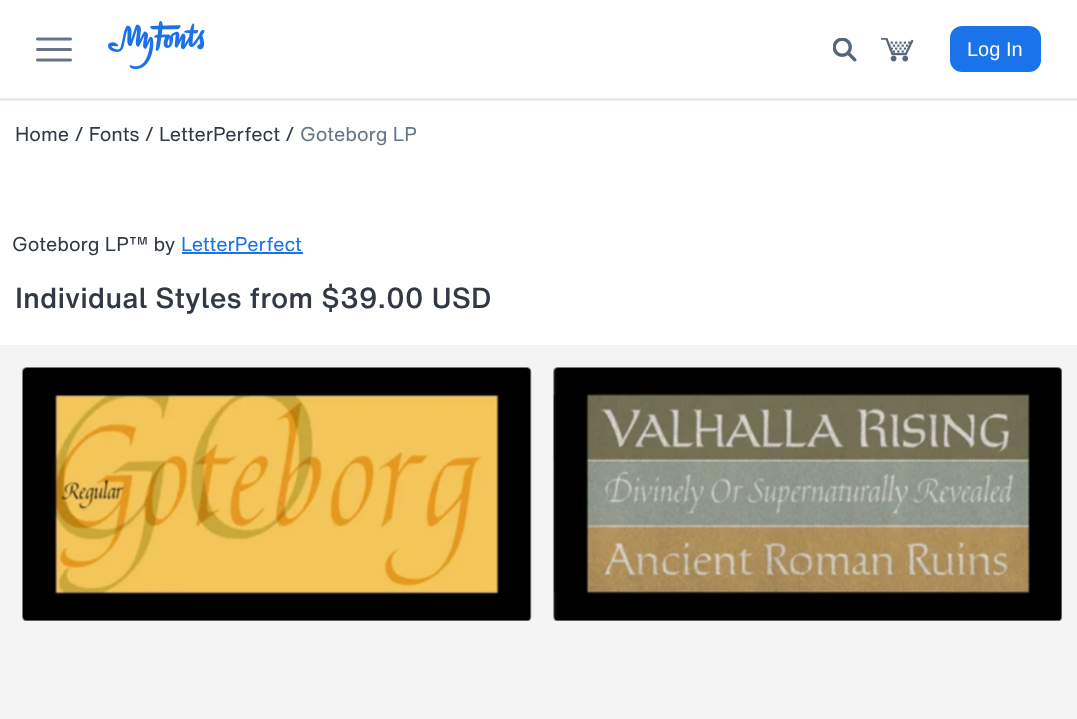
<!DOCTYPE html>
<meta charset="utf-8">
<style>body { margin: 0 } canvas { display: block }</style>
<canvas id="canvas" width="1077" height="719"></canvas>
<script type="module">
  const canvas = document.getElementById("canvas");
  const ctx = canvas.getContext("2d");
  ctx.miterLimit = 4;
  ctx.fontKerning = "normal";
  async function loadImage(src) {
    const img = new Image();
    img.src = src;
    await img.decode();
    return img;
  }

  ctx.fillStyle = "#ffffff";
  ctx.fillRect(0, 0, 1077, 719);
  ctx.fillStyle = "#e7eaee";
  ctx.fillRect(0, 98, 1077, 3);
  ctx.drawImage(await loadImage("img1.png"), 36, 37, 36, 25);
  ctx.drawImage(await loadImage("img2.png"), 108, 21, 97, 48);
  ctx.drawImage(await loadImage("img3.png"), 833, 38, 24, 24);
  ctx.drawImage(await loadImage("img4.png"), 881, 38, 33, 24);
  ctx.fillStyle = "#1a73e8";
  ctx.beginPath();
  ctx.roundRect(950, 26, 91, 46, 12);
  ctx.fill();
  ctx.font = "20px Liberation Sans";
  ctx.fillStyle = "#ffffff";
  ctx.fillText("Log In", 967, 56);
  ctx.font = "19.5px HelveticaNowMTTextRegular";
  ctx.fillStyle = "#313945";
  ctx.fillText("Home / Fonts / LetterPerfect /", 15, 141);
  ctx.fillStyle = "#667488";
  ctx.fillText("Goteborg LP", 300, 141);
  ctx.font = "19.5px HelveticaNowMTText";
  ctx.fillStyle = "#313945";
  ctx.fillText("Goteborg LP™ by", 12, 251);
  ctx.fillStyle = "#1a73e8";
  ctx.fillText("LetterPerfect", 181, 251);
  ctx.fillRect(182, 252, 121, 2);
  ctx.font = "500 28.5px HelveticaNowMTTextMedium";
  ctx.fillStyle = "#313945";
  ctx.fillText("Individual Styles from $39.00 USD", 15, 308);
  ctx.fillStyle = "#f4f4f4";
  ctx.fillRect(0, 345, 1077, 374);
  ctx.drawImage(await loadImage("img5.png"), 22, 367, 510, 254);
  ctx.drawImage(await loadImage("img6.png"), 553, 367, 509, 254);
</script>
